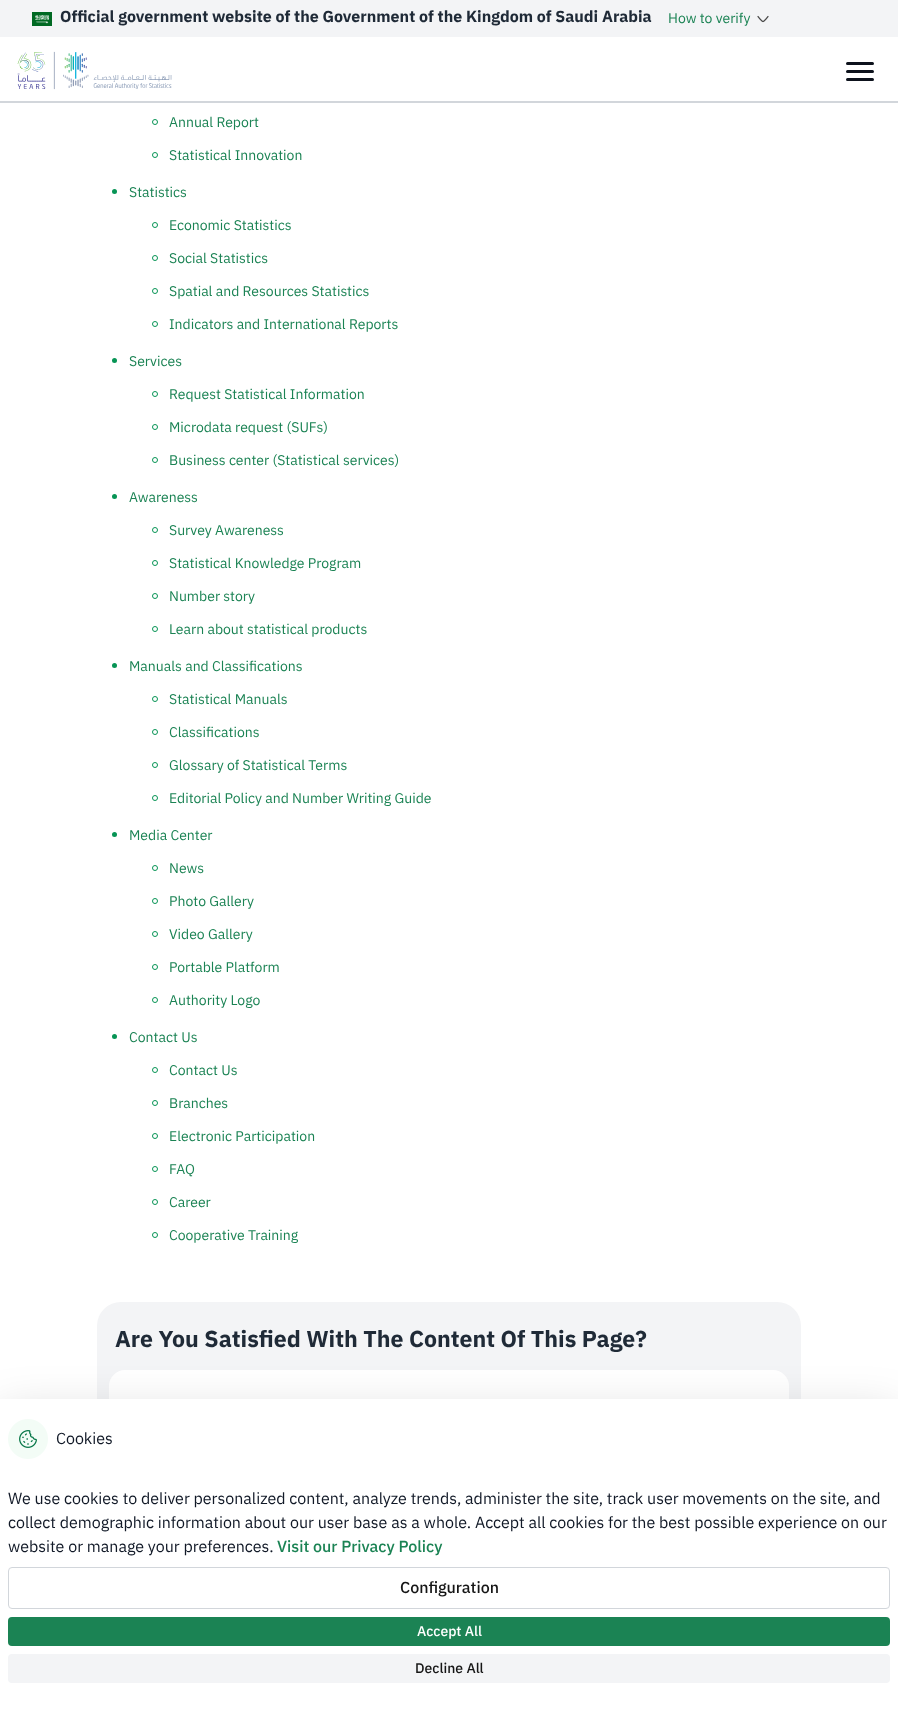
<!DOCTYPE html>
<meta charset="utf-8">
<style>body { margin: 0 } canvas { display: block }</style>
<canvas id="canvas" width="898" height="1711"></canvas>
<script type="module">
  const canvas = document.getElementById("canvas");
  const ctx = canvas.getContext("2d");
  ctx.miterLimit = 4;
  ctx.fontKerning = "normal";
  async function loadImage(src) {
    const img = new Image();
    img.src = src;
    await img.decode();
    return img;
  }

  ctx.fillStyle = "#ffffff";
  ctx.fillRect(0, 0, 898, 1711);
  ctx.fillStyle = "#f3f4f6";
  ctx.fillRect(0, 0, 898, 37);
  ctx.drawImage(await loadImage("img1.png"), 32, 12, 20, 14);
  ctx.font = "bold 16px IBM Plex Sans Arabic";
  ctx.fillStyle = "#1f2a37";
  ctx.fillText("Official government website of the Government of the Kingdom of Saudi Arabia", 60, 22);
  ctx.font = "14px IBM Plex Sans Arabic";
  ctx.fillStyle = "#1b8354";
  ctx.fillText("How to verify", 668, 23);
  ctx.drawImage(await loadImage("img2.png"), 757, 15, 12, 8);
  ctx.fillStyle = "#d2d6db";
  ctx.fillRect(0, 101, 898, 2);
  ctx.drawImage(await loadImage("img3.png"), 17, 51, 155, 39);
  ctx.fillStyle = "#0d121c";
  ctx.beginPath();
  ctx.roundRect(846, 70, 28, 3, 1.5);
  ctx.fill();
  ctx.beginPath();
  ctx.roundRect(846, 62, 28, 3, 1.5);
  ctx.fill();
  ctx.beginPath();
  ctx.roundRect(846, 78, 28, 3, 1.5);
  ctx.fill();
  ctx.beginPath();
  ctx.arc(155, 122, 2.5, 0, Math.PI * 2);
  ctx.strokeStyle = "#079455";
  ctx.stroke();
  ctx.fillStyle = "#1b8354";
  ctx.fillText("Annual Report", 169, 127);
  ctx.beginPath();
  ctx.arc(155, 155, 2.5, 0, Math.PI * 2);
  ctx.stroke();
  ctx.fillText("Statistical Innovation", 169, 160);
  ctx.fillStyle = "#079455";
  ctx.beginPath();
  ctx.arc(114.5, 191.5, 2.5, 0, Math.PI * 2);
  ctx.fill();
  ctx.fillStyle = "#1b8354";
  ctx.fillText("Statistics", 129, 197);
  ctx.beginPath();
  ctx.arc(155, 225, 2.5, 0, Math.PI * 2);
  ctx.stroke();
  ctx.fillText("Economic Statistics", 169, 230);
  ctx.beginPath();
  ctx.arc(155, 258, 2.5, 0, Math.PI * 2);
  ctx.stroke();
  ctx.fillText("Social Statistics", 169, 263);
  ctx.beginPath();
  ctx.arc(155, 291, 2.5, 0, Math.PI * 2);
  ctx.stroke();
  ctx.fillText("Spatial and Resources Statistics", 169, 296);
  ctx.beginPath();
  ctx.arc(155, 324, 2.5, 0, Math.PI * 2);
  ctx.stroke();
  ctx.fillText("Indicators and International Reports", 169, 329);
  ctx.fillStyle = "#079455";
  ctx.beginPath();
  ctx.arc(114.5, 360.5, 2.5, 0, Math.PI * 2);
  ctx.fill();
  ctx.fillStyle = "#1b8354";
  ctx.fillText("Services", 129, 366);
  ctx.beginPath();
  ctx.arc(155, 394, 2.5, 0, Math.PI * 2);
  ctx.stroke();
  ctx.fillText("Request Statistical Information", 169, 399);
  ctx.beginPath();
  ctx.arc(155, 427, 2.5, 0, Math.PI * 2);
  ctx.stroke();
  ctx.fillText("Microdata request (SUFs)", 169, 432);
  ctx.beginPath();
  ctx.arc(155, 460, 2.5, 0, Math.PI * 2);
  ctx.stroke();
  ctx.fillText("Business center (Statistical services)", 169, 465);
  ctx.fillStyle = "#079455";
  ctx.beginPath();
  ctx.arc(114.5, 496.5, 2.5, 0, Math.PI * 2);
  ctx.fill();
  ctx.fillStyle = "#1b8354";
  ctx.fillText("Awareness", 129, 502);
  ctx.beginPath();
  ctx.arc(155, 530, 2.5, 0, Math.PI * 2);
  ctx.stroke();
  ctx.fillText("Survey Awareness", 169, 535);
  ctx.beginPath();
  ctx.arc(155, 563, 2.5, 0, Math.PI * 2);
  ctx.stroke();
  ctx.fillText("Statistical Knowledge Program", 169, 568);
  ctx.beginPath();
  ctx.arc(155, 596, 2.5, 0, Math.PI * 2);
  ctx.stroke();
  ctx.fillText("Number story", 169, 601);
  ctx.beginPath();
  ctx.arc(155, 629, 2.5, 0, Math.PI * 2);
  ctx.stroke();
  ctx.fillText("Learn about statistical products", 169, 634);
  ctx.fillStyle = "#079455";
  ctx.beginPath();
  ctx.arc(114.5, 665.5, 2.5, 0, Math.PI * 2);
  ctx.fill();
  ctx.fillStyle = "#1b8354";
  ctx.fillText("Manuals and Classifications", 129, 671);
  ctx.beginPath();
  ctx.arc(155, 699, 2.5, 0, Math.PI * 2);
  ctx.stroke();
  ctx.fillText("Statistical Manuals", 169, 704);
  ctx.beginPath();
  ctx.arc(155, 732, 2.5, 0, Math.PI * 2);
  ctx.stroke();
  ctx.fillText("Classifications", 169, 737);
  ctx.beginPath();
  ctx.arc(155, 765, 2.5, 0, Math.PI * 2);
  ctx.stroke();
  ctx.fillText("Glossary of Statistical Terms", 169, 770);
  ctx.beginPath();
  ctx.arc(155, 798, 2.5, 0, Math.PI * 2);
  ctx.stroke();
  ctx.fillText("Editorial Policy and Number Writing Guide", 169, 803);
  ctx.fillStyle = "#079455";
  ctx.beginPath();
  ctx.arc(114.5, 834.5, 2.5, 0, Math.PI * 2);
  ctx.fill();
  ctx.fillStyle = "#1b8354";
  ctx.fillText("Media Center", 129, 840);
  ctx.beginPath();
  ctx.arc(155, 868, 2.5, 0, Math.PI * 2);
  ctx.stroke();
  ctx.fillText("News", 169, 873);
  ctx.beginPath();
  ctx.arc(155, 901, 2.5, 0, Math.PI * 2);
  ctx.stroke();
  ctx.fillText("Photo Gallery", 169, 906);
  ctx.beginPath();
  ctx.arc(155, 934, 2.5, 0, Math.PI * 2);
  ctx.stroke();
  ctx.fillText("Video Gallery", 169, 939);
  ctx.beginPath();
  ctx.arc(155, 967, 2.5, 0, Math.PI * 2);
  ctx.stroke();
  ctx.fillText("Portable Platform", 169, 972);
  ctx.beginPath();
  ctx.arc(155, 1000, 2.5, 0, Math.PI * 2);
  ctx.stroke();
  ctx.fillText("Authority Logo", 169, 1005);
  ctx.fillStyle = "#079455";
  ctx.beginPath();
  ctx.arc(114.5, 1036.5, 2.5, 0, Math.PI * 2);
  ctx.fill();
  ctx.fillStyle = "#1b8354";
  ctx.fillText("Contact Us", 129, 1042);
  ctx.beginPath();
  ctx.arc(155, 1070, 2.5, 0, Math.PI * 2);
  ctx.stroke();
  ctx.fillText("Contact Us", 169, 1075);
  ctx.beginPath();
  ctx.arc(155, 1103, 2.5, 0, Math.PI * 2);
  ctx.stroke();
  ctx.fillText("Branches", 169, 1108);
  ctx.beginPath();
  ctx.arc(155, 1136, 2.5, 0, Math.PI * 2);
  ctx.stroke();
  ctx.fillText("Electronic Participation", 169, 1141);
  ctx.beginPath();
  ctx.arc(155, 1169, 2.5, 0, Math.PI * 2);
  ctx.stroke();
  ctx.fillText("FAQ", 169, 1174);
  ctx.beginPath();
  ctx.arc(155, 1202, 2.5, 0, Math.PI * 2);
  ctx.stroke();
  ctx.fillText("Career", 169, 1207);
  ctx.beginPath();
  ctx.arc(155, 1235, 2.5, 0, Math.PI * 2);
  ctx.stroke();
  ctx.fillText("Cooperative Training", 169, 1240);
  ctx.fillStyle = "#f3f4f6";
  ctx.beginPath();
  ctx.roundRect(97, 1302, 704, 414, 24);
  ctx.fill();
  ctx.font = "bold 23.1px IBM Plex Sans Arabic";
  ctx.fillStyle = "#1f2a37";
  ctx.fillText("Are You Satisfied With The Content Of This Page?", 115, 1347);
  ctx.fillStyle = "#ffffff";
  ctx.beginPath();
  ctx.roundRect(109, 1370, 680, 326, 16);
  ctx.fill();
  ctx.fillStyle = "rgba(0, 0, 0, 0.18)";
  ctx.filter = "blur(24px)";
  ctx.beginPath();
  ctx.rect(0, 1415, 898, 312);
  ctx.fill();
  ctx.filter = "none";
  ctx.fillStyle = "#ffffff";
  ctx.fillRect(0, 1399, 898, 312);
  ctx.drawImage(await loadImage("img4.png"), 8, 1419, 40, 40);
  ctx.font = "16px IBM Plex Sans Arabic";
  ctx.fillStyle = "#111927";
  ctx.fillText("Cookies", 56, 1444);
  ctx.fillText("We use cookies to deliver personalized content, analyze trends, administer the site, track user movements on the site, and", 8, 1504);
  ctx.fillText("collect demographic information about our user base as a whole. Accept all cookies for the best possible experience on our", 8, 1528);
  ctx.fillText("website or manage your preferences.", 8, 1552);
  ctx.font = "500 16px IBM Plex Sans Arabic";
  ctx.fillStyle = "#1b8354";
  ctx.fillText("Visit our Privacy Policy", 277, 1552);
  ctx.beginPath();
  ctx.roundRect(8.5, 1567.5, 881, 41, 3.5);
  ctx.strokeStyle = "#d2d6db";
  ctx.stroke();
  ctx.fillStyle = "#161616";
  ctx.fillText("Configuration", 400, 1593);
  ctx.fillStyle = "#1b8354";
  ctx.beginPath();
  ctx.roundRect(8, 1617, 882, 29, 4);
  ctx.fill();
  ctx.font = "500 14px IBM Plex Sans Arabic";
  ctx.fillStyle = "#ffffff";
  ctx.fillText("Accept All", 417, 1636);
  ctx.fillStyle = "#f3f4f6";
  ctx.beginPath();
  ctx.roundRect(8, 1654, 882, 29, 4);
  ctx.fill();
  ctx.fillStyle = "#161616";
  ctx.fillText("Decline All", 415, 1673);
</script>
